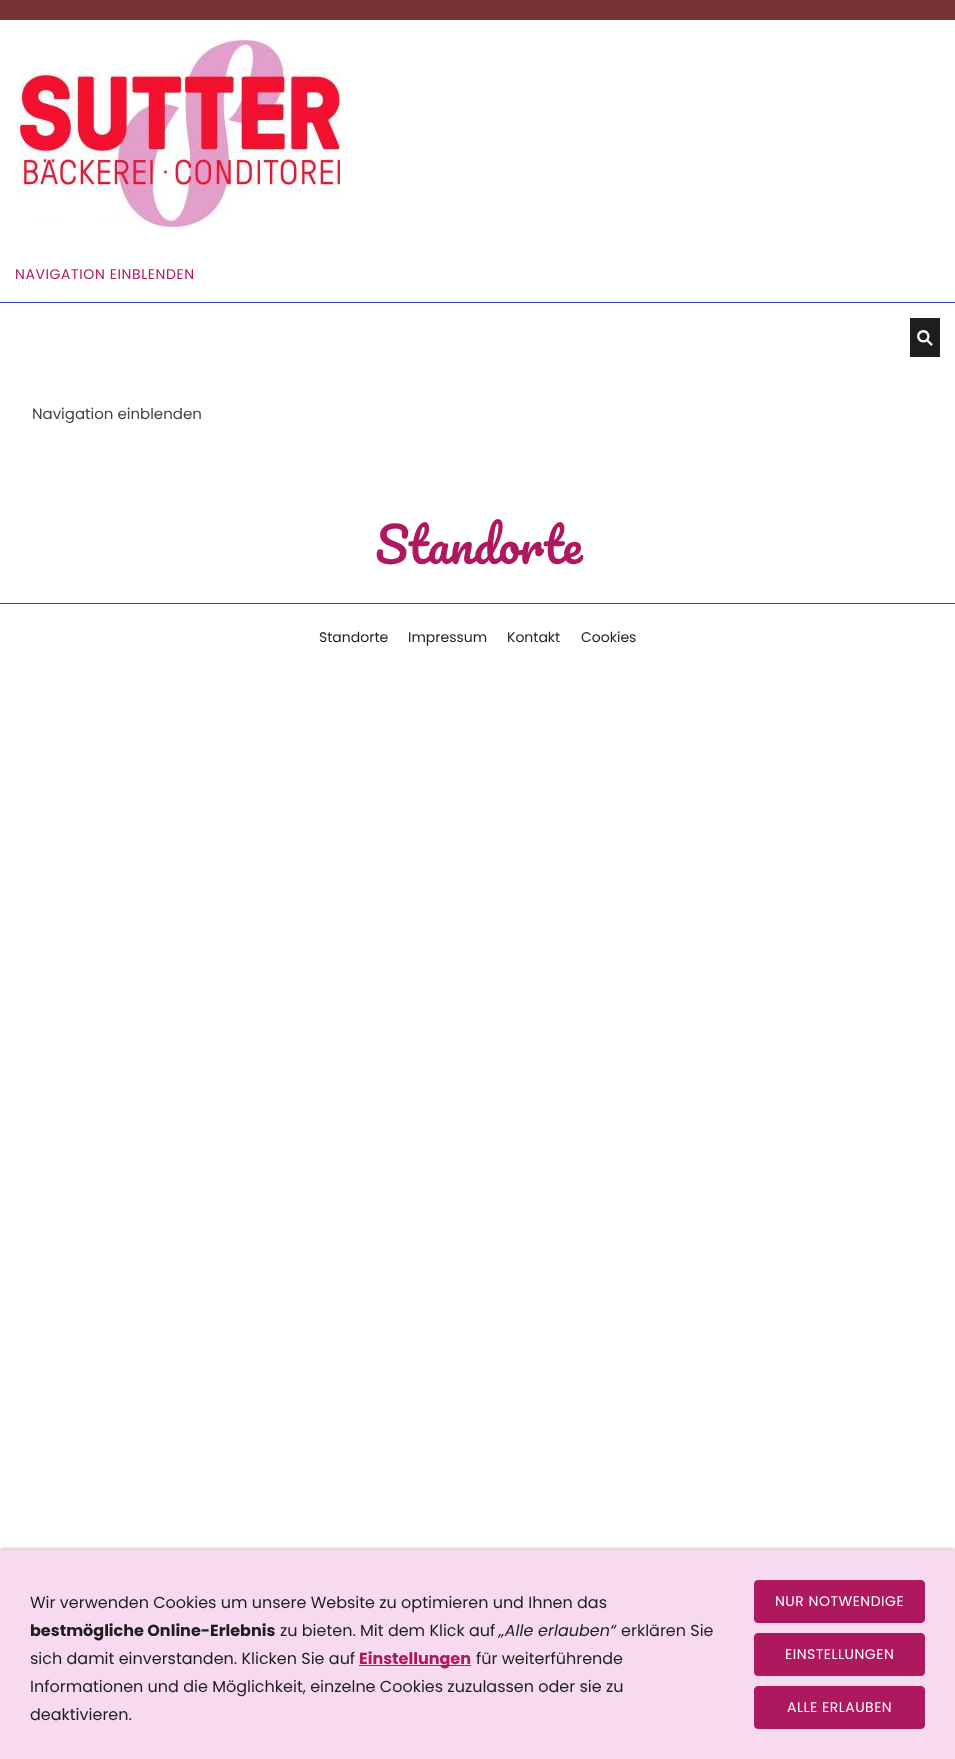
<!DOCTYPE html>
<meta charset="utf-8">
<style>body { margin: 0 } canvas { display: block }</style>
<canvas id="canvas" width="955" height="1759"></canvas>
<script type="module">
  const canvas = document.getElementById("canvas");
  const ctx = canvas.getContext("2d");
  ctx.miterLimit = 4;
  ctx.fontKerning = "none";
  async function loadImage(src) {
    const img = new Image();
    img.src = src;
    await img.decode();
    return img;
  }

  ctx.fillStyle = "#ffffff";
  ctx.fillRect(0, 0, 955, 1759);
  ctx.fillStyle = "#773435";
  ctx.fillRect(0, 0, 955, 20);
  ctx.drawImage(await loadImage("img1.png"), 20, 40, 320, 187);
  ctx.fillStyle = "#3846b1";
  ctx.fillRect(0, 302, 955, 1);
  ctx.letterSpacing = "0.6px";
  ctx.font = "14px Poppins";
  ctx.fillStyle = "#ae185e";
  ctx.fillText("NAVIGATION EINBLENDEN", 15, 279);
  ctx.fillStyle = "#1e1e1e";
  ctx.fillRect(910, 318, 30, 39);
  ctx.drawImage(await loadImage("img2.png"), 917, 330, 16, 16);
  ctx.letterSpacing = "0px";
  ctx.font = "15px Poppins";
  ctx.fillStyle = "#444444";
  ctx.fillText("Navigation einblenden", 32, 419);
  ctx.font = "48px Pacifico";
  ctx.fillStyle = "#ae185e";
  ctx.fillText("Standorte", 375, 564);
  ctx.fillStyle = "#3846b1";
  ctx.fillRect(0, 603, 955, 1);
  ctx.font = "14px Poppins";
  ctx.fillStyle = "#1e1e1e";
  ctx.fillText("Standorte", 319, 642);
  ctx.fillText("Impressum", 408, 642);
  ctx.fillText("Kontakt", 507, 642);
  ctx.fillText("Cookies", 581, 642);
  ctx.fillStyle = "rgba(0, 0, 0, 0.4)";
  ctx.filter = "blur(2.5px)";
  ctx.beginPath();
  ctx.rect(0, 1550, 955, 209);
  ctx.fill();
  ctx.filter = "none";
  ctx.fillStyle = "#f7daef";
  ctx.fillRect(0, 1550, 955, 209);
  ctx.font = "16px Poppins";
  ctx.fillStyle = "#1e1e1e";
  ctx.fillText("Wir verwenden Cookies um unsere Website zu optimieren und Ihnen das", 30, 1608);
  ctx.font = "bold 16px Poppins";
  ctx.fillText("bestmögliche Online-Erlebnis", 30, 1636);
  ctx.font = "16px Poppins";
  ctx.fillText("zu bieten. Mit dem Klick auf", 280, 1636);
  ctx.font = "italic 16px Poppins";
  ctx.fillText("„Alle erlauben“", 499, 1636);
  ctx.font = "16px Poppins";
  ctx.fillText("erklären Sie", 621, 1636);
  ctx.fillText("sich damit einverstanden. Klicken Sie auf", 30, 1664);
  ctx.fillStyle = "#ae185e";
  ctx.fillRect(359, 1665, 112, 1);
  ctx.font = "bold 16px Poppins";
  ctx.fillText("Einstellungen", 359, 1664);
  ctx.font = "16px Poppins";
  ctx.fillStyle = "#1e1e1e";
  ctx.fillText("für weiterführende", 476, 1664);
  ctx.fillText("Informationen und die Möglichkeit, einzelne Cookies zuzulassen oder sie zu", 30, 1692);
  ctx.fillText("deaktivieren.", 30, 1720);
  ctx.fillStyle = "#ae185e";
  ctx.beginPath();
  ctx.roundRect(754.5, 1580.5, 170, 42, 3.5);
  ctx.fill();
  ctx.strokeStyle = "#ae185e";
  ctx.stroke();
  ctx.letterSpacing = "0.5px";
  ctx.font = "14px Poppins";
  ctx.fillStyle = "#ffffff";
  ctx.fillText("NUR NOTWENDIGE", 775, 1606);
  ctx.fillStyle = "#ae185e";
  ctx.beginPath();
  ctx.roundRect(754.5, 1633.5, 170, 42, 3.5);
  ctx.fill();
  ctx.stroke();
  ctx.fillStyle = "#ffffff";
  ctx.fillText("EINSTELLUNGEN", 785, 1659);
  ctx.fillStyle = "#ae185e";
  ctx.beginPath();
  ctx.roundRect(754.5, 1686.5, 170, 42, 3.5);
  ctx.fill();
  ctx.stroke();
  ctx.fillStyle = "#ffffff";
  ctx.fillText("ALLE ERLAUBEN", 787, 1712);
</script>
